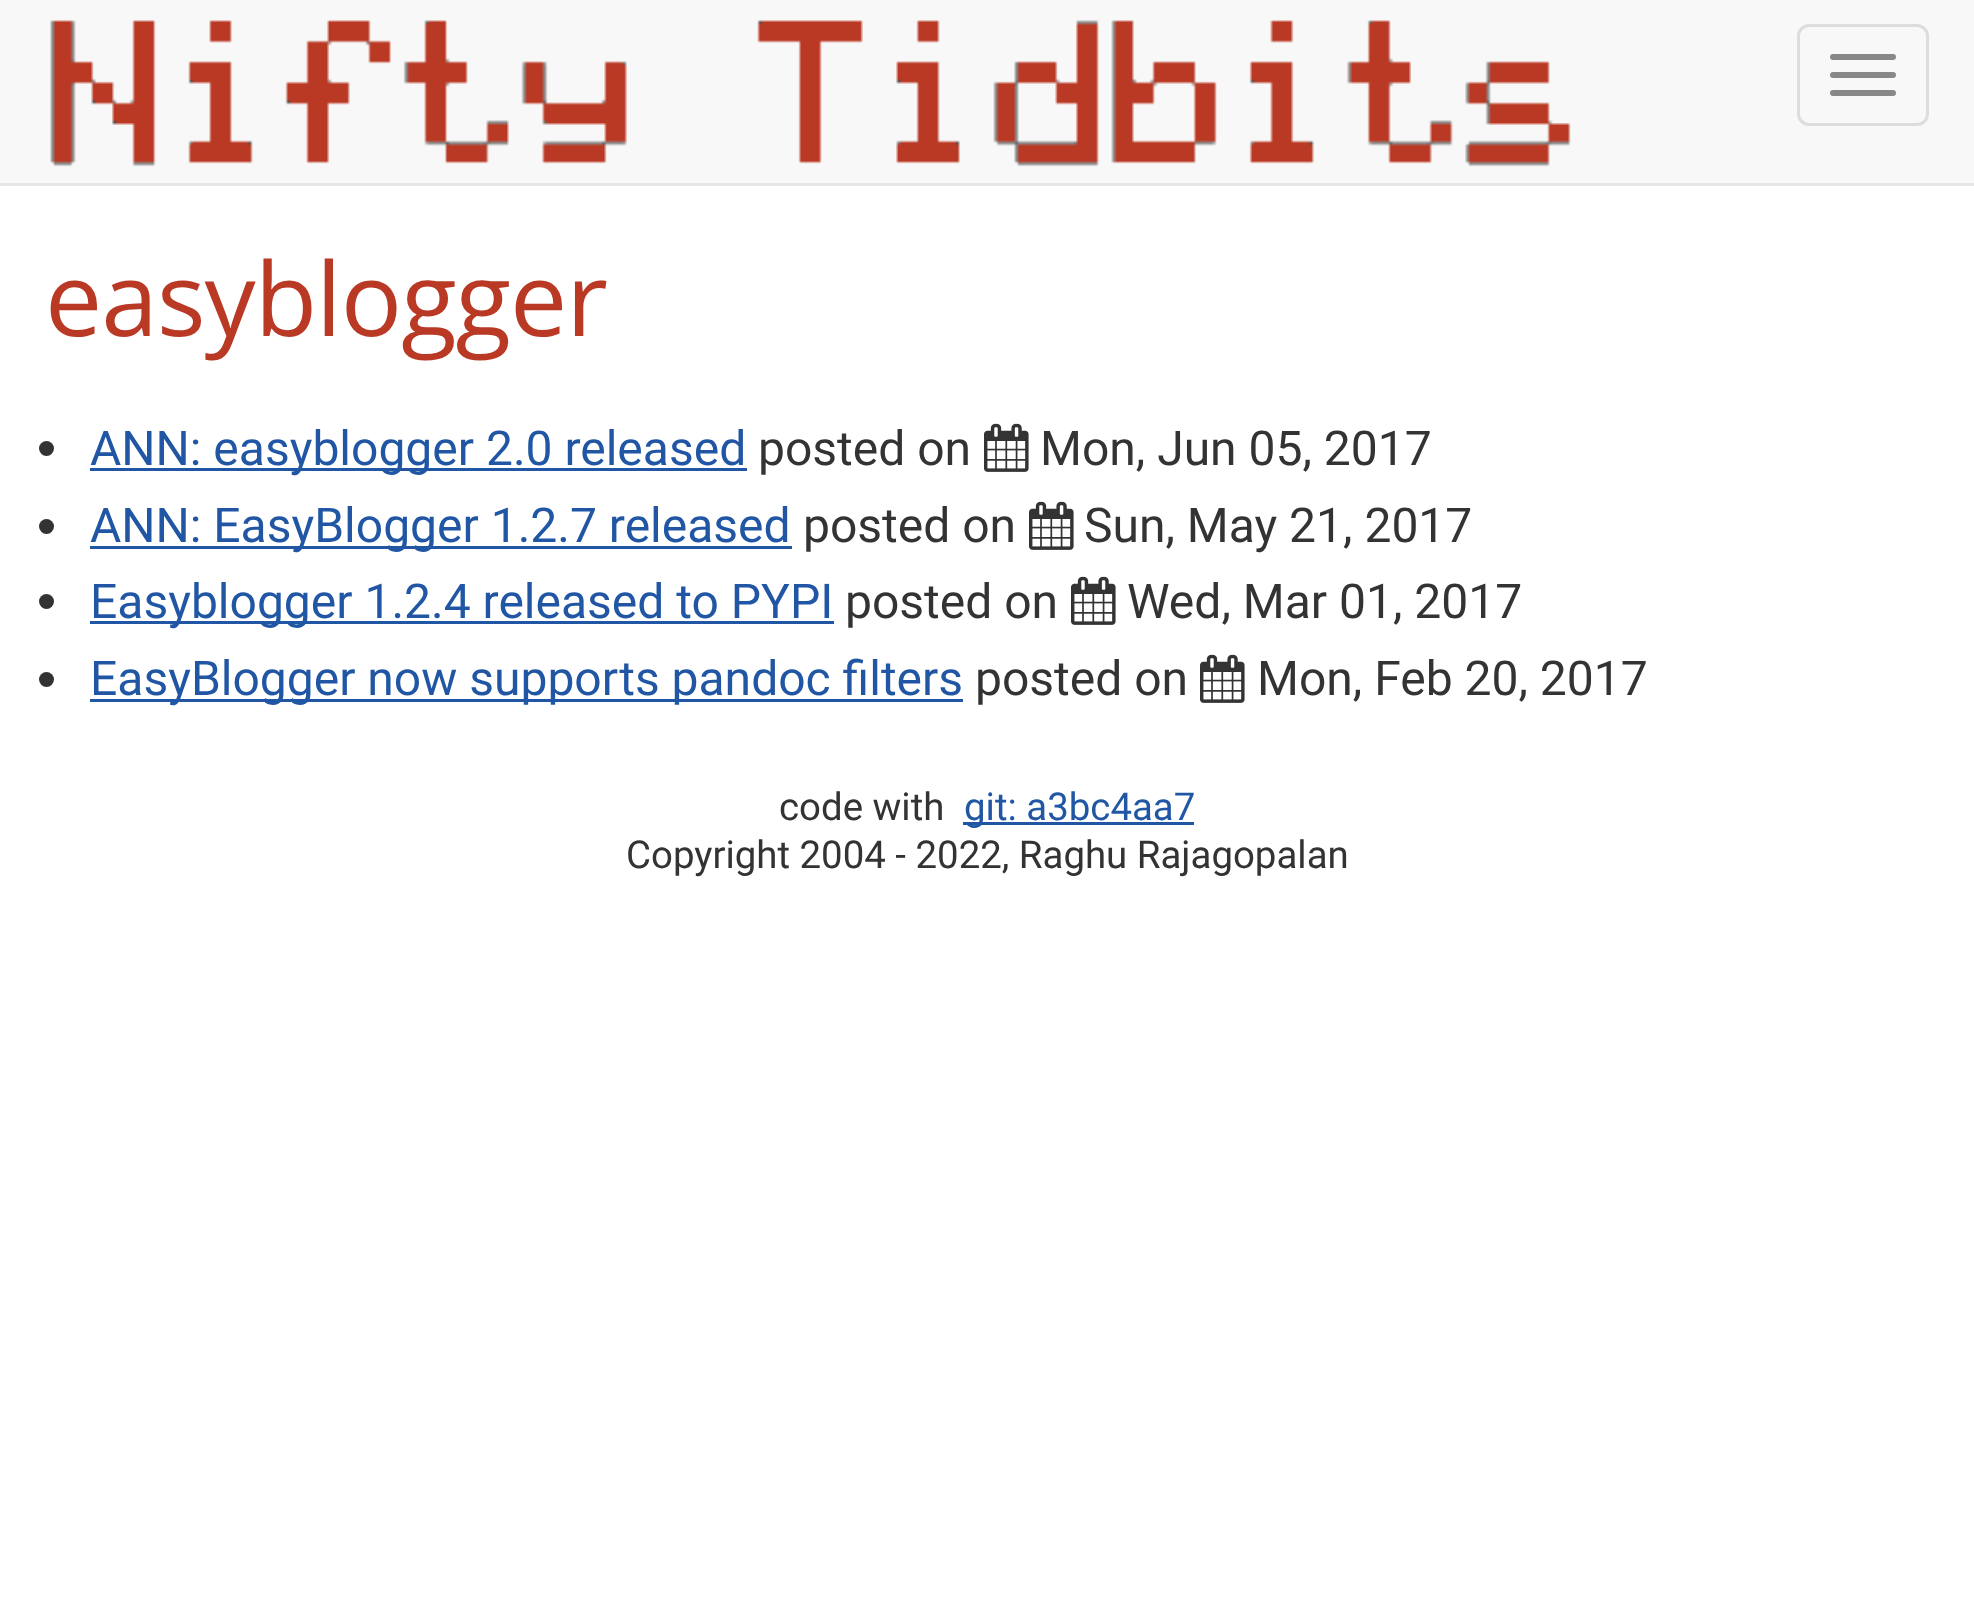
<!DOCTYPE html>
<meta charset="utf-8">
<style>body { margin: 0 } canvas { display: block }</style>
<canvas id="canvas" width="1974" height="1600"></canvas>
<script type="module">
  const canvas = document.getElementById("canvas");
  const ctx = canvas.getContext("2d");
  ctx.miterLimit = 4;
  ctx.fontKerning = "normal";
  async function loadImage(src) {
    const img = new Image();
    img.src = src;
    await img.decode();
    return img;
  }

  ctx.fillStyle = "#ffffff";
  ctx.fillRect(0, 0, 1974, 1600);
  ctx.fillStyle = "#f8f8f8";
  ctx.fillRect(0, 0, 1974, 183);
  ctx.fillStyle = "#e7e7e7";
  ctx.fillRect(0, 183, 1974, 3);
  ctx.drawImage(await loadImage("img1.png"), 50, 20, 1521, 147);
  ctx.beginPath();
  ctx.roundRect(1798.5, 25.5, 129, 99, 10.5);
  ctx.strokeStyle = "#dddddd";
  ctx.lineWidth = 3;
  ctx.stroke();
  ctx.fillStyle = "#888888";
  ctx.beginPath();
  ctx.roundRect(1830, 54, 66, 6, 3);
  ctx.fill();
  ctx.beginPath();
  ctx.roundRect(1830, 72, 66, 6, 3);
  ctx.fill();
  ctx.beginPath();
  ctx.roundRect(1830, 90, 66, 6, 3);
  ctx.fill();
  ctx.letterSpacing = "-1px";
  ctx.font = "102px Open Sans";
  ctx.fillStyle = "#ba3925";
  ctx.fillText("easyblogger", 45, 336);
  ctx.fillStyle = "#333333";
  ctx.beginPath();
  ctx.arc(46.5, 448.5, 7.5, 0, Math.PI * 2);
  ctx.fill();
  ctx.fillStyle = "#2156a5";
  ctx.fillRect(90, 468, 657, 3);
  ctx.letterSpacing = "0px";
  ctx.font = "48px Roboto";
  ctx.fillText("ANN: easyblogger 2.0 released", 90, 465);
  ctx.fillStyle = "#333333";
  ctx.fillText("posted on", 758, 465);
  ctx.drawImage(await loadImage("img2.png"), 984, 423, 45, 49);
  ctx.fillText("Mon, Jun 05, 2017", 1040, 465);
  ctx.beginPath();
  ctx.arc(46.5, 526.5, 7.5, 0, Math.PI * 2);
  ctx.fill();
  ctx.fillStyle = "#2156a5";
  ctx.fillRect(90, 546, 702, 3);
  ctx.fillText("ANN: EasyBlogger 1.2.7 released", 90, 542);
  ctx.fillStyle = "#333333";
  ctx.fillText("posted on", 803, 542);
  ctx.drawImage(await loadImage("img2.png"), 1029, 501, 45, 49);
  ctx.fillText("Sun, May 21, 2017", 1084, 542);
  ctx.beginPath();
  ctx.arc(46.5, 601.5, 7.5, 0, Math.PI * 2);
  ctx.fill();
  ctx.fillStyle = "#2156a5";
  ctx.fillRect(90, 621, 744, 3);
  ctx.fillText("Easyblogger 1.2.4 released to PYPI", 90, 618);
  ctx.fillStyle = "#333333";
  ctx.fillText("posted on", 845, 618);
  ctx.drawImage(await loadImage("img2.png"), 1071, 576, 45, 49);
  ctx.fillText("Wed, Mar 01, 2017", 1127, 618);
  ctx.beginPath();
  ctx.arc(46.5, 679.5, 7.5, 0, Math.PI * 2);
  ctx.fill();
  ctx.fillStyle = "#2156a5";
  ctx.fillRect(90, 699, 873, 3);
  ctx.fillText("EasyBlogger now supports pandoc filters", 90, 695);
  ctx.fillStyle = "#333333";
  ctx.fillText("posted on", 975, 695);
  ctx.drawImage(await loadImage("img2.png"), 1200, 654, 45, 49);
  ctx.fillText("Mon, Feb 20, 2017", 1257, 695);
  ctx.font = "38.4px Roboto";
  ctx.fillText("code with", 779, 820);
  ctx.fillStyle = "#2156a5";
  ctx.fillRect(963, 822, 231, 3);
  ctx.fillText("git: a3bc4aa7", 964, 820);
  ctx.fillStyle = "#333333";
  ctx.fillText("Copyright 2004 - 2022, Raghu Rajagopalan", 626, 868);
</script>
